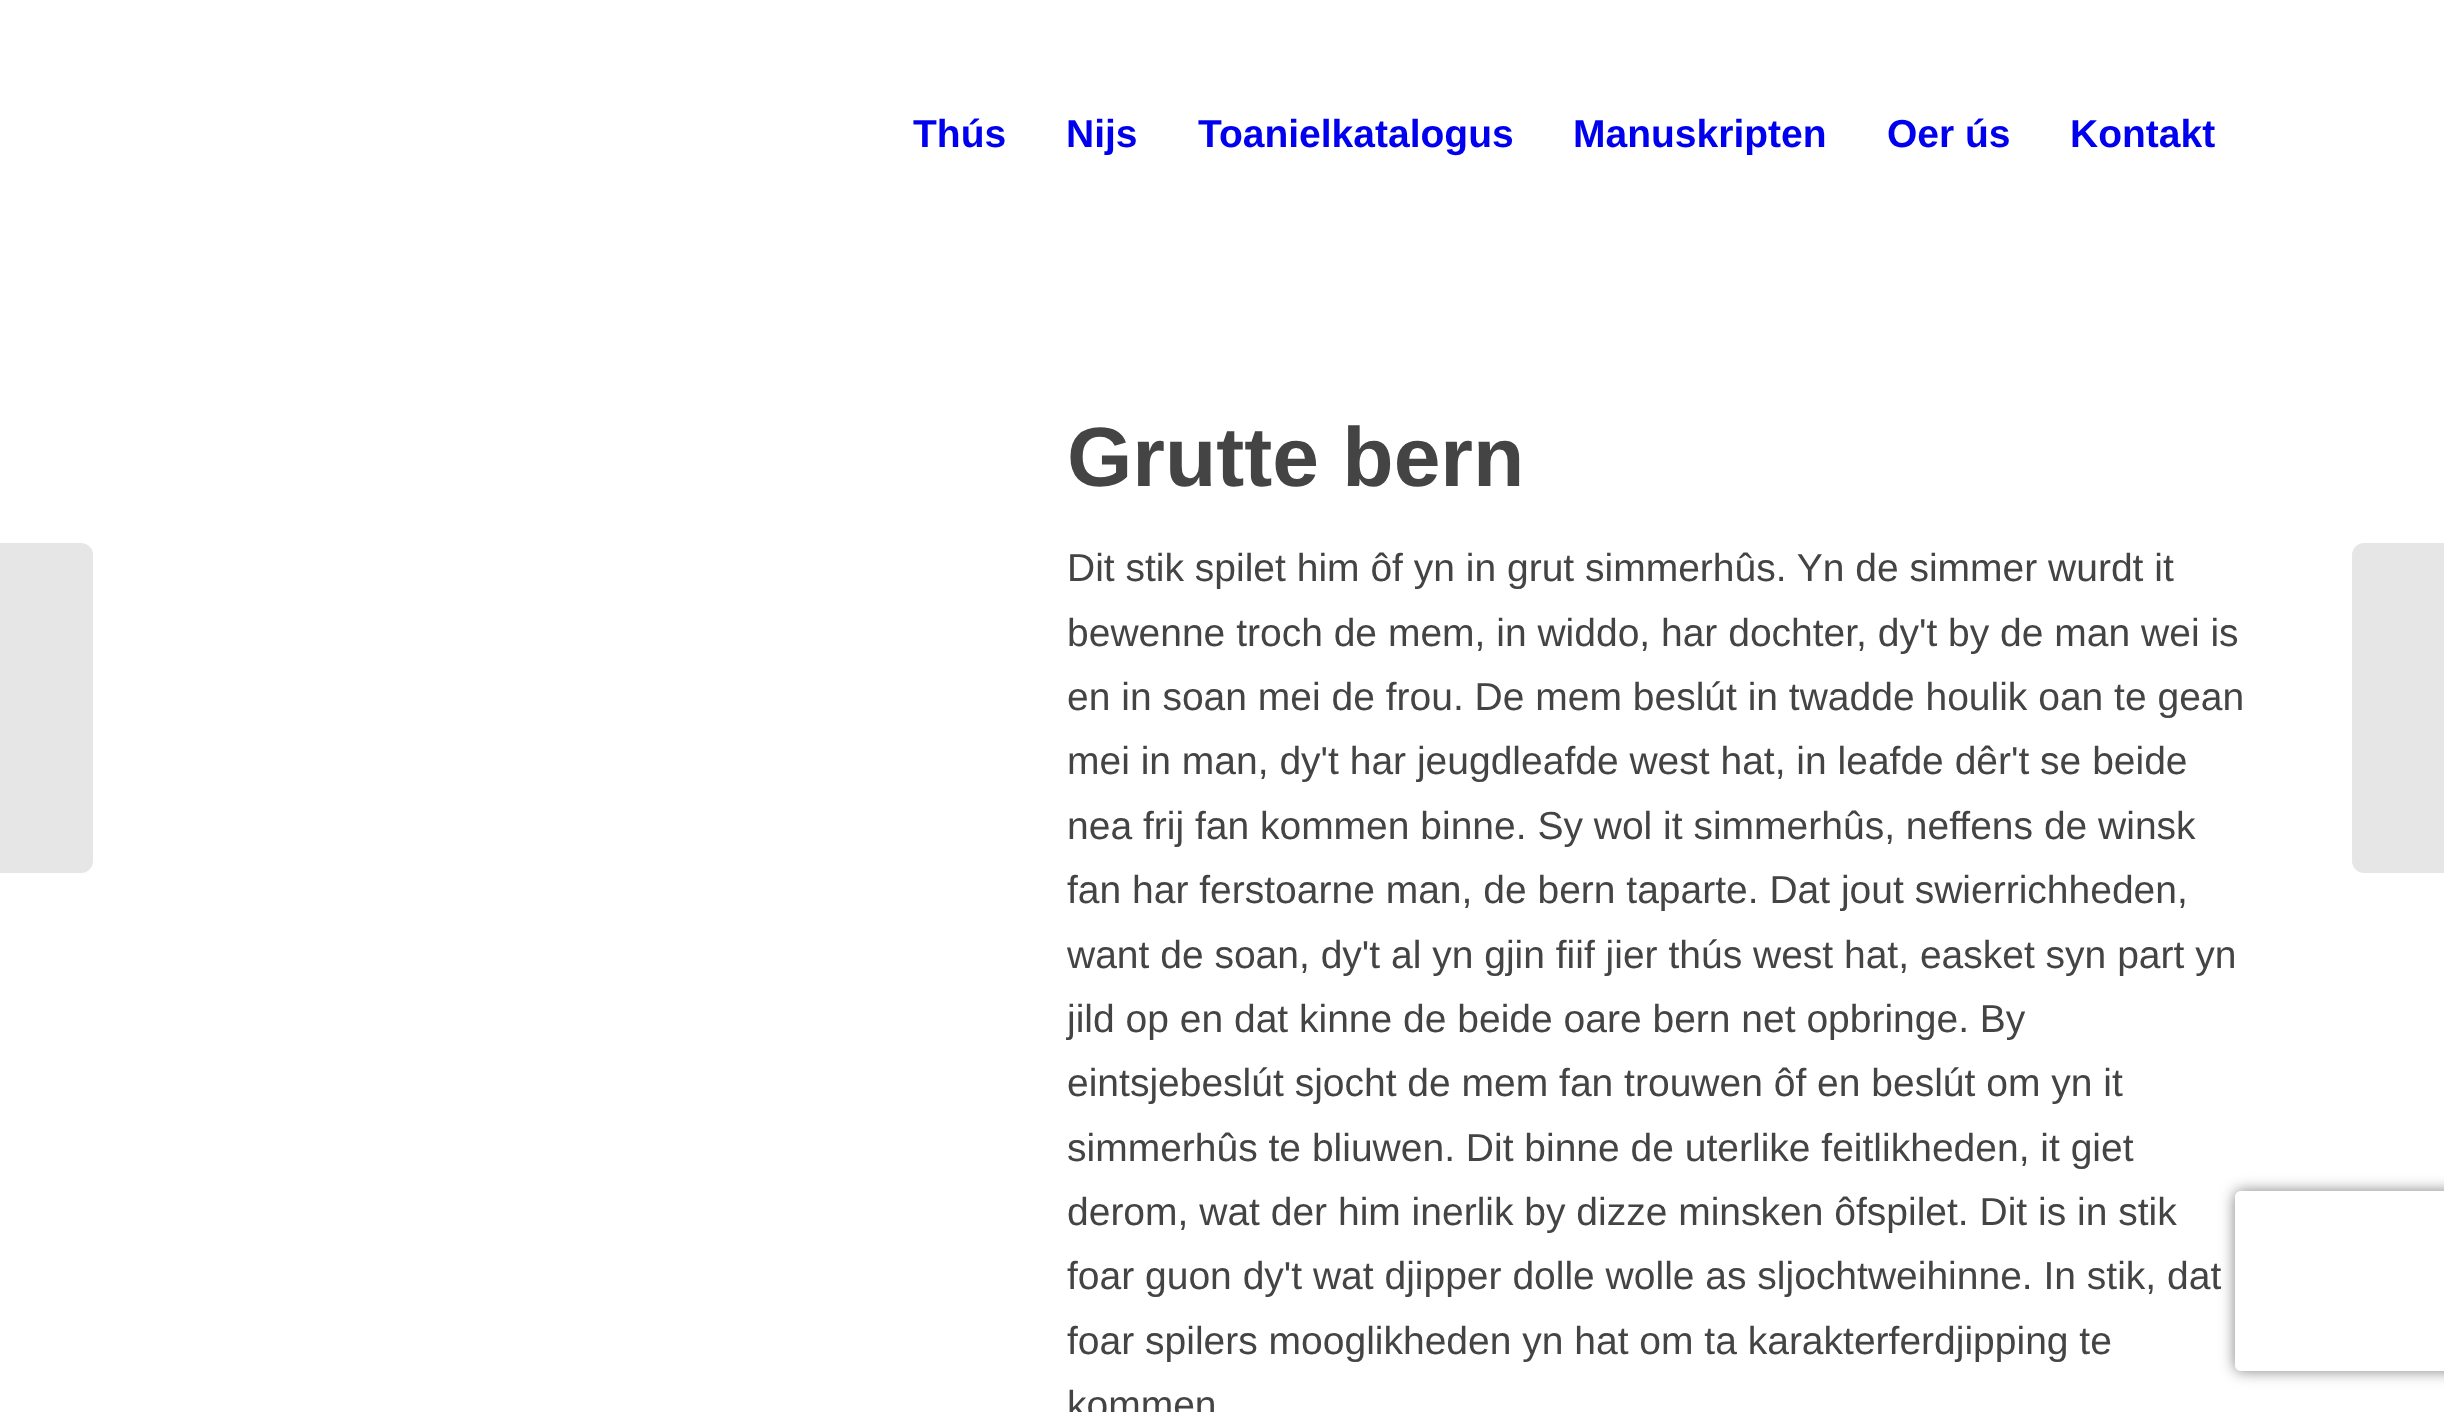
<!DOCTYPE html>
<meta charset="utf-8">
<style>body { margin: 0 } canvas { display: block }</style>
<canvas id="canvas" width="2444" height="1412"></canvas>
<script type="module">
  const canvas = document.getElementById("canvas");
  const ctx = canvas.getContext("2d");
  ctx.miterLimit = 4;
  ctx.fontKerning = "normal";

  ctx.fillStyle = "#ffffff";
  ctx.fillRect(0, 0, 2444, 1412);
  ctx.font = "bold 39px Liberation Sans";
  ctx.fillStyle = "#0000ee";
  ctx.fillText("Thús", 913, 147);
  ctx.fillText("Nijs", 1066, 147);
  ctx.fillText("Toanielkatalogus", 1198, 147);
  ctx.fillText("Manuskripten", 1573, 147);
  ctx.fillText("Oer ús", 1887, 147);
  ctx.fillText("Kontakt", 2070, 147);
  ctx.fillStyle = "#e6e6e6";
  ctx.beginPath();
  ctx.roundRect(0, 543, 93, 330, [0, 12, 12, 0]);
  ctx.fill();
  ctx.font = "bold 84px Liberation Sans";
  ctx.fillStyle = "#444444";
  ctx.fillText("Grutte bern", 1067, 486);
  ctx.font = "39px Liberation Sans";
  ctx.fillText("Dit stik spilet him ôf yn in grut simmerhûs. Yn de simmer wurdt it", 1067, 581);
  ctx.fillText("bewenne troch de mem, in widdo, har dochter, dy't by de man wei is", 1067, 646);
  ctx.fillText("en in soan mei de frou. De mem beslút in twadde houlik oan te gean", 1067, 710);
  ctx.fillText("mei in man, dy't har jeugdleafde west hat, in leafde dêr't se beide", 1067, 774);
  ctx.fillText("nea frij fan kommen binne. Sy wol it simmerhûs, neffens de winsk", 1067, 839);
  ctx.fillText("fan har ferstoarne man, de bern taparte. Dat jout swierrichheden,", 1067, 903);
  ctx.fillText("want de soan, dy't al yn gjin fiif jier thús west hat, easket syn part yn", 1067, 968);
  ctx.fillText("jild op en dat kinne de beide oare bern net opbringe. By", 1067, 1032);
  ctx.fillText("eintsjebeslút sjocht de mem fan trouwen ôf en beslút om yn it", 1067, 1096);
  ctx.fillText("simmerhûs te bliuwen. Dit binne de uterlike feitlikheden, it giet", 1067, 1161);
  ctx.fillText("derom, wat der him inerlik by dizze minsken ôfspilet. Dit is in stik", 1067, 1225);
  ctx.save();
  ctx.beginPath();
  ctx.moveTo(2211, 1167);
  ctx.lineTo(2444, 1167);
  ctx.lineTo(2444, 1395);
  ctx.lineTo(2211, 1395);
  ctx.closePath();
  ctx.moveTo(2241, 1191);
  ctx.lineTo(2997, 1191);
  ctx.bezierCurveTo(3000.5, 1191, 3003, 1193.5, 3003, 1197);
  ctx.lineTo(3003, 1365);
  ctx.bezierCurveTo(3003, 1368.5, 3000.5, 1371, 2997, 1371);
  ctx.lineTo(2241, 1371);
  ctx.bezierCurveTo(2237.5, 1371, 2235, 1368.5, 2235, 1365);
  ctx.lineTo(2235, 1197);
  ctx.bezierCurveTo(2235, 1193.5, 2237.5, 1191, 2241, 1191);
  ctx.closePath();
  ctx.clip("evenodd");
  ctx.fillStyle = "#808080";
  ctx.filter = "blur(7.5px)";
  ctx.beginPath();
  ctx.roundRect(2235, 1191, 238, 180, 6);
  ctx.fill();
  ctx.filter = "none";
  ctx.restore();
  ctx.fillText("foar guon dy't wat djipper dolle wolle as sljochtweihinne. In stik, dat", 1067, 1289);
  ctx.fillText("foar spilers mooglikheden yn hat om ta karakterferdjipping te", 1067, 1354);
  ctx.fillText("kommen", 1067, 1418);
  ctx.fillStyle = "#e6e6e6";
  ctx.beginPath();
  ctx.moveTo(2364, 543);
  ctx.lineTo(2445, 543);
  ctx.lineTo(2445, 873);
  ctx.lineTo(2364, 873);
  ctx.bezierCurveTo(2357.5, 873, 2352, 867.5, 2352, 861);
  ctx.lineTo(2352, 555);
  ctx.bezierCurveTo(2352, 548.5, 2357.5, 543, 2364, 543);
  ctx.closePath();
  ctx.fill();
</script>
